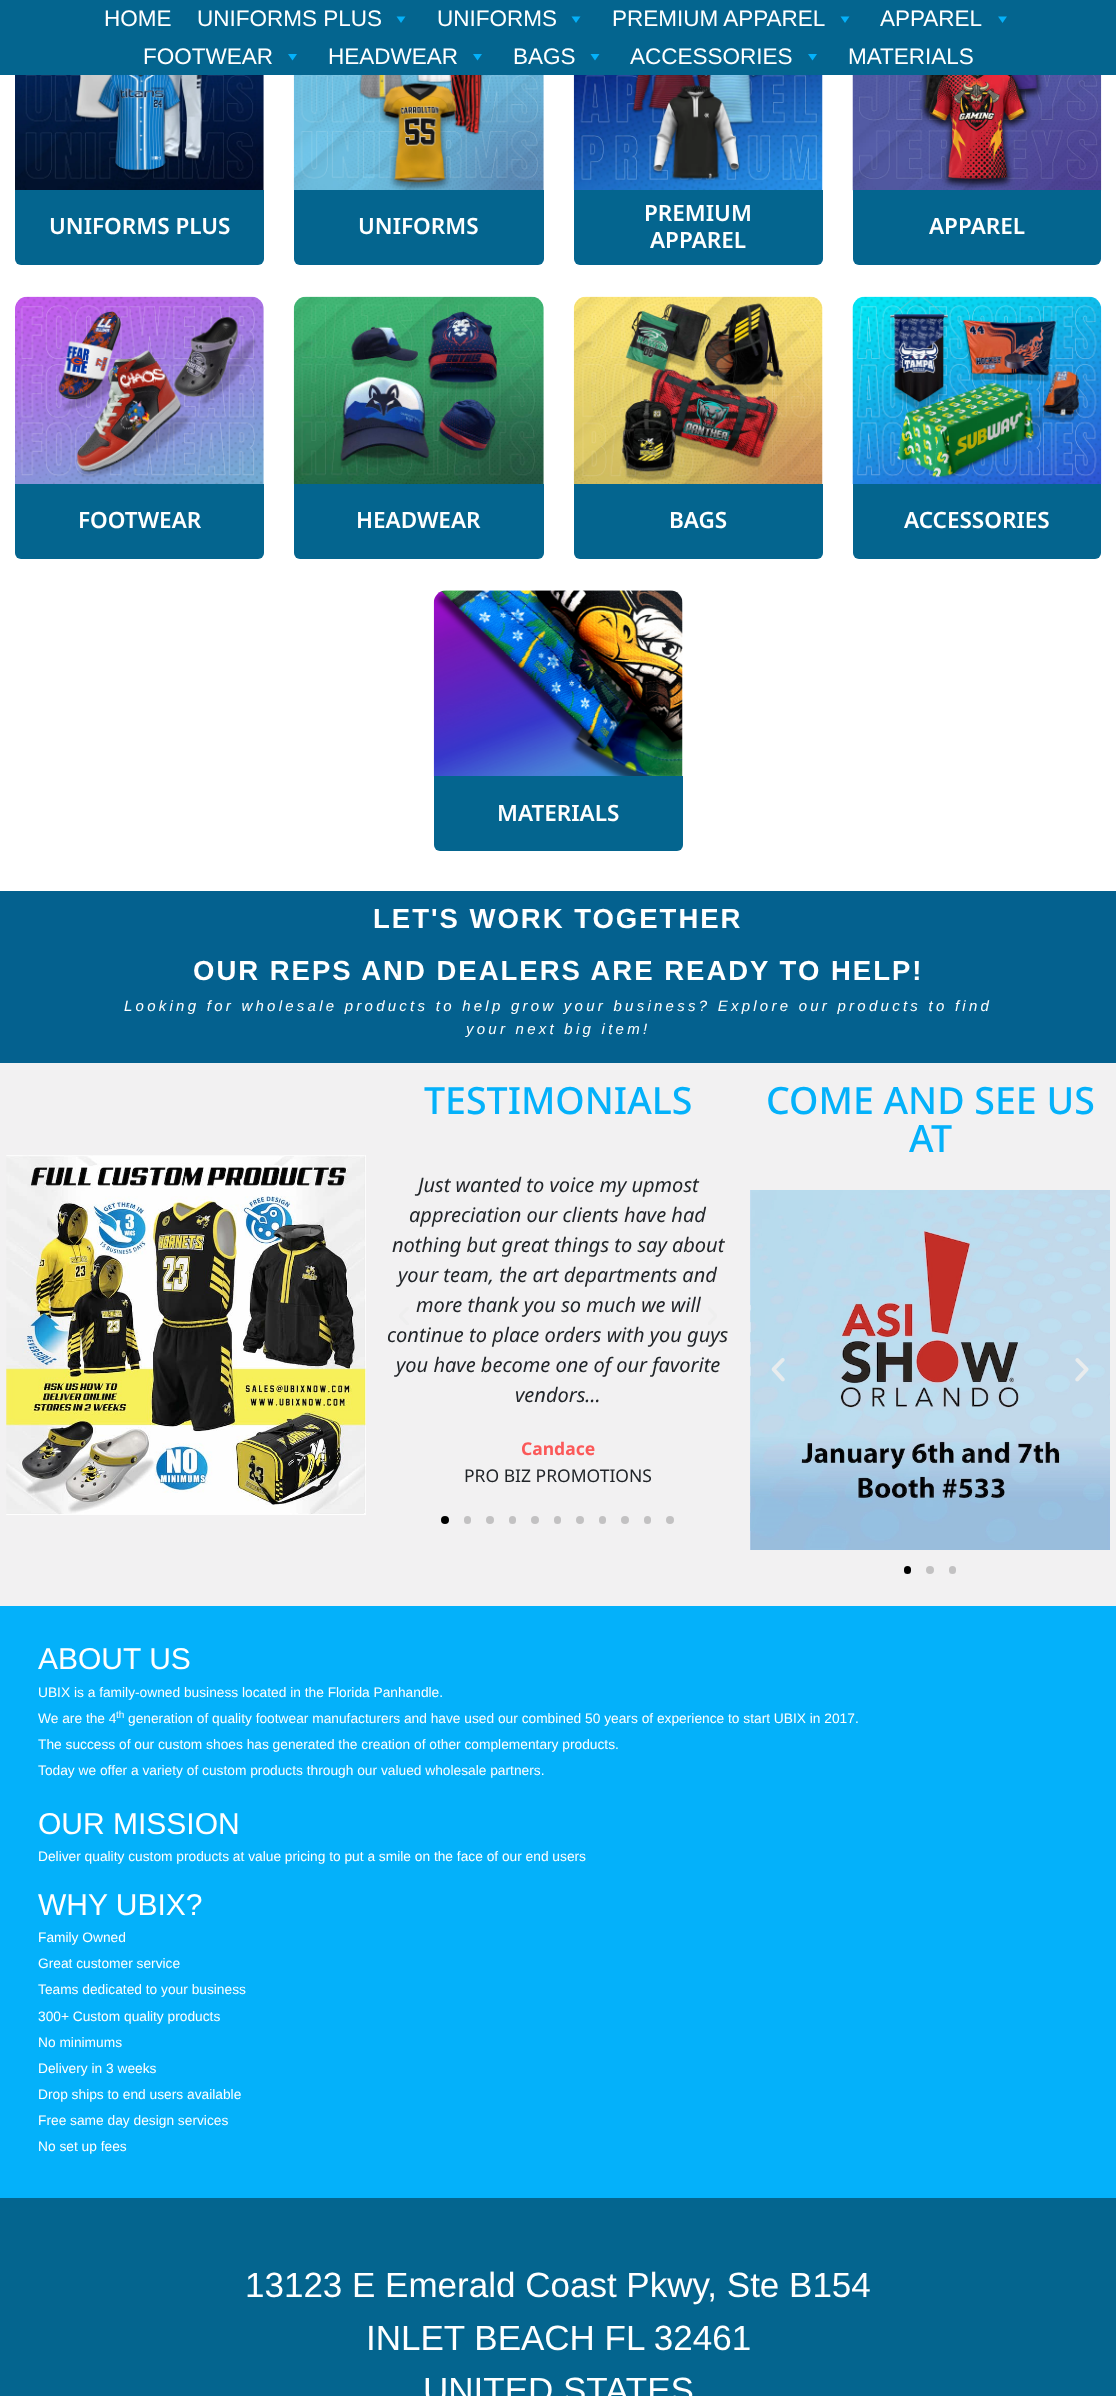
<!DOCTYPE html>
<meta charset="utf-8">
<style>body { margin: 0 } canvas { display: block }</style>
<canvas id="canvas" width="1116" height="2396"></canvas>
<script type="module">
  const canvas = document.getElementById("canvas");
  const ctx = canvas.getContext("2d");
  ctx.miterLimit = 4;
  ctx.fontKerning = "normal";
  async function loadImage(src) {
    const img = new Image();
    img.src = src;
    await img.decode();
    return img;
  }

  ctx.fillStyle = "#ffffff";
  ctx.fillRect(0, 0, 1116, 2396);
  ctx.fillStyle = "#04658f";
  ctx.fillRect(0, 0, 1116, 75);
  ctx.font = "22.5px Liberation Sans";
  ctx.fillStyle = "#ffffff";
  ctx.fillText("HOME", 104, 26);
  ctx.fillText("UNIFORMS PLUS", 197, 26);
  ctx.fillStyle = "#04b1fa";
  ctx.beginPath();
  ctx.moveTo(405.5, 16.5);
  ctx.lineTo(401, 23);
  ctx.lineTo(396.5, 16.5);
  ctx.closePath();
  ctx.fill();
  ctx.fillStyle = "#ffffff";
  ctx.fillText("UNIFORMS", 437, 26);
  ctx.fillStyle = "#04b1fa";
  ctx.beginPath();
  ctx.moveTo(580.5, 16.5);
  ctx.lineTo(576, 23);
  ctx.lineTo(571.5, 16.5);
  ctx.closePath();
  ctx.fill();
  ctx.fillStyle = "#ffffff";
  ctx.fillText("PREMIUM APPAREL", 612, 26);
  ctx.fillStyle = "#04b1fa";
  ctx.beginPath();
  ctx.moveTo(849.5, 16.5);
  ctx.lineTo(845, 23);
  ctx.lineTo(840.5, 16.5);
  ctx.closePath();
  ctx.fill();
  ctx.fillStyle = "#ffffff";
  ctx.fillText("APPAREL", 880, 26);
  ctx.fillStyle = "#04b1fa";
  ctx.beginPath();
  ctx.moveTo(1007, 16.5);
  ctx.lineTo(1002.5, 23);
  ctx.lineTo(998, 16.5);
  ctx.closePath();
  ctx.fill();
  ctx.fillStyle = "#ffffff";
  ctx.fillText("FOOTWEAR", 143, 64);
  ctx.fillStyle = "#04b1fa";
  ctx.beginPath();
  ctx.moveTo(297, 54);
  ctx.lineTo(292.5, 60.5);
  ctx.lineTo(288, 54);
  ctx.closePath();
  ctx.fill();
  ctx.fillStyle = "#ffffff";
  ctx.fillText("HEADWEAR", 328, 64);
  ctx.fillStyle = "#04b1fa";
  ctx.beginPath();
  ctx.moveTo(482, 54);
  ctx.lineTo(477.5, 60.5);
  ctx.lineTo(473, 54);
  ctx.closePath();
  ctx.fill();
  ctx.fillStyle = "#ffffff";
  ctx.fillText("BAGS", 513, 64);
  ctx.fillStyle = "#04b1fa";
  ctx.beginPath();
  ctx.moveTo(599.5, 54);
  ctx.lineTo(595, 60.5);
  ctx.lineTo(590.5, 54);
  ctx.closePath();
  ctx.fill();
  ctx.fillStyle = "#ffffff";
  ctx.fillText("ACCESSORIES", 630, 64);
  ctx.fillStyle = "#04b1fa";
  ctx.beginPath();
  ctx.moveTo(817, 54);
  ctx.lineTo(812.5, 60.5);
  ctx.lineTo(808, 54);
  ctx.closePath();
  ctx.fill();
  ctx.fillStyle = "#ffffff";
  ctx.fillText("MATERIALS", 848, 64);
  ctx.drawImage(await loadImage("img1.png"), 15, 75, 249, 115);
  ctx.fillStyle = "#04658f";
  ctx.beginPath();
  ctx.roundRect(15, 190, 249, 75, [0, 0, 6, 6]);
  ctx.fill();
  ctx.font = "600 22.5px Noto Sans";
  ctx.fillStyle = "#ffffff";
  ctx.fillText("UNIFORMS PLUS", 49, 234);
  ctx.drawImage(await loadImage("img2.png"), 293, 75, 251, 115);
  ctx.fillStyle = "#04658f";
  ctx.beginPath();
  ctx.roundRect(294, 190, 250, 75, [0, 0, 6, 6]);
  ctx.fill();
  ctx.fillStyle = "#ffffff";
  ctx.fillText("UNIFORMS", 358, 234);
  ctx.drawImage(await loadImage("img3.png"), 573, 75, 250, 115);
  ctx.fillStyle = "#04658f";
  ctx.beginPath();
  ctx.roundRect(574, 190, 249, 75, [0, 0, 6, 6]);
  ctx.fill();
  ctx.fillStyle = "#ffffff";
  ctx.fillText("PREMIUM", 644, 221);
  ctx.fillText("APPAREL", 650, 248);
  ctx.drawImage(await loadImage("img4.png"), 852, 75, 250, 116);
  ctx.fillStyle = "#04658f";
  ctx.beginPath();
  ctx.roundRect(853, 190, 248, 75, [0, 0, 6, 6]);
  ctx.fill();
  ctx.fillStyle = "#ffffff";
  ctx.fillText("APPAREL", 929, 234);
  ctx.drawImage(await loadImage("img5.png"), 15, 296, 249, 188);
  ctx.fillStyle = "#04658f";
  ctx.beginPath();
  ctx.roundRect(15, 484, 249, 75, [0, 0, 6, 6]);
  ctx.fill();
  ctx.fillStyle = "#ffffff";
  ctx.fillText("FOOTWEAR", 78, 528);
  ctx.drawImage(await loadImage("img6.png"), 293, 296, 251, 188);
  ctx.fillStyle = "#04658f";
  ctx.beginPath();
  ctx.roundRect(294, 484, 250, 75, [0, 0, 6, 6]);
  ctx.fill();
  ctx.fillStyle = "#ffffff";
  ctx.fillText("HEADWEAR", 356, 528);
  ctx.drawImage(await loadImage("img7.png"), 573, 296, 250, 188);
  ctx.fillStyle = "#04658f";
  ctx.beginPath();
  ctx.roundRect(574, 484, 249, 75, [0, 0, 6, 6]);
  ctx.fill();
  ctx.fillStyle = "#ffffff";
  ctx.fillText("BAGS", 669, 528);
  ctx.drawImage(await loadImage("img8.png"), 852, 296, 250, 188);
  ctx.fillStyle = "#04658f";
  ctx.beginPath();
  ctx.roundRect(853, 484, 248, 75, [0, 0, 6, 6]);
  ctx.fill();
  ctx.fillStyle = "#ffffff";
  ctx.fillText("ACCESSORIES", 904, 528);
  ctx.drawImage(await loadImage("img9.png"), 433, 590, 250, 187);
  ctx.fillStyle = "#04658f";
  ctx.beginPath();
  ctx.roundRect(434, 776, 249, 75, [0, 0, 6, 6]);
  ctx.fill();
  ctx.fillStyle = "#ffffff";
  ctx.fillText("MATERIALS", 497, 821);
  ctx.fillStyle = "#04618f";
  ctx.fillRect(0, 891, 1116, 172);
  ctx.letterSpacing = "2px";
  ctx.font = "bold 27.5px Liberation Sans";
  ctx.fillStyle = "#ffffff";
  ctx.fillText("LET'S WORK TOGETHER", 373, 928);
  ctx.fillText("OUR REPS AND DEALERS ARE READY TO HELP!", 193, 980);
  ctx.letterSpacing = "3.25px";
  ctx.font = "italic 15px Liberation Sans";
  ctx.fillText("Looking for wholesale products to help grow your business? Explore our products to find", 124, 1011);
  ctx.fillText("your next big item!", 466, 1034);
  ctx.fillStyle = "#f2f1f2";
  ctx.fillRect(0, 1063, 1116, 543);
  ctx.letterSpacing = "0px";
  ctx.font = "500 37.5px Noto Sans";
  ctx.fillStyle = "#04b1fa";
  ctx.fillText("TESTIMONIALS", 424, 1114);
  ctx.font = "italic 20px Noto Sans";
  ctx.fillStyle = "#212529";
  ctx.fillText("Just wanted to voice my upmost", 418, 1192);
  ctx.fillText("appreciation our clients have had", 409, 1222);
  ctx.fillText("nothing but great things to say about", 392, 1252);
  ctx.fillText("your team, the art departments and", 398, 1282);
  ctx.fillText("more thank you so much we will", 416, 1312);
  ctx.fillText("continue to place orders with you guys", 387, 1342);
  ctx.fillText("you have become one of our favorite", 396, 1372);
  ctx.fillText("vendors…", 515, 1402);
  ctx.font = "bold 17.5px Noto Sans";
  ctx.fillStyle = "#fb5959";
  ctx.fillText("Candace", 521, 1455);
  ctx.font = "17.5px Noto Sans";
  ctx.fillStyle = "#212529";
  ctx.fillText("PRO BIZ PROMOTIONS", 464, 1482);
  ctx.drawImage(await loadImage("img10.png"), 399, 1307, 10, 18);
  ctx.drawImage(await loadImage("img11.png"), 708, 1307, 9, 18);
  ctx.fillStyle = "#000000";
  ctx.beginPath();
  ctx.arc(445, 1520, 4, 0, Math.PI * 2);
  ctx.fill();
  ctx.fillStyle = "#c2c1c2";
  ctx.beginPath();
  ctx.roundRect(464, 1516, 7, 8, 3.5);
  ctx.fill();
  ctx.beginPath();
  ctx.arc(490, 1520, 4, 0, Math.PI * 2);
  ctx.fill();
  ctx.beginPath();
  ctx.roundRect(509, 1516, 7, 8, 3.5);
  ctx.fill();
  ctx.beginPath();
  ctx.arc(535, 1520, 4, 0, Math.PI * 2);
  ctx.fill();
  ctx.beginPath();
  ctx.roundRect(554, 1516, 7, 8, 3.5);
  ctx.fill();
  ctx.beginPath();
  ctx.arc(580, 1520, 4, 0, Math.PI * 2);
  ctx.fill();
  ctx.beginPath();
  ctx.roundRect(599, 1516, 7, 8, 3.5);
  ctx.fill();
  ctx.beginPath();
  ctx.arc(625, 1520, 4, 0, Math.PI * 2);
  ctx.fill();
  ctx.beginPath();
  ctx.roundRect(644, 1516, 7, 8, 3.5);
  ctx.fill();
  ctx.beginPath();
  ctx.arc(670, 1520, 4, 0, Math.PI * 2);
  ctx.fill();
  ctx.font = "500 37.5px Noto Sans";
  ctx.fillStyle = "#04b1fa";
  ctx.fillText("COME AND SEE US", 766, 1114);
  ctx.fillText("AT", 909, 1152);
  ctx.drawImage(await loadImage("img12.png"), 750, 1190, 360, 360);
  ctx.drawImage(await loadImage("img13.png"), 771, 1358, 14, 24);
  ctx.drawImage(await loadImage("img14.png"), 1075, 1358, 14, 24);
  ctx.fillStyle = "#000000";
  ctx.beginPath();
  ctx.roundRect(904, 1566, 7, 8, 3.5);
  ctx.fill();
  ctx.fillStyle = "#c2c1c2";
  ctx.beginPath();
  ctx.arc(930, 1570, 4, 0, Math.PI * 2);
  ctx.fill();
  ctx.beginPath();
  ctx.roundRect(949, 1566, 7, 8, 3.5);
  ctx.fill();
  ctx.drawImage(await loadImage("img15.png"), 6, 1155, 360, 360);
  ctx.fillStyle = "#04b1fa";
  ctx.fillRect(0, 1606, 1116, 592);
  ctx.font = "30px Liberation Sans";
  ctx.fillStyle = "#ffffff";
  ctx.fillText("ABOUT US", 38, 1669);
  ctx.font = "13.75px Liberation Sans";
  ctx.fillText("UBIX is a family-owned business located in the Florida Panhandle.", 38, 1697);
  ctx.fillText("We are the 4", 38, 1723);
  ctx.font = "10px Liberation Sans";
  ctx.fillText("th", 116, 1718);
  ctx.font = "13.75px Liberation Sans";
  ctx.fillText("generation of quality footwear manufacturers and have used our combined 50 years of experience to start UBIX in 2017.", 128, 1723);
  ctx.fillText("The success of our custom shoes has generated the creation of other complementary products.", 38, 1749);
  ctx.fillText("Today we offer a variety of custom products through our valued wholesale partners.", 38, 1775);
  ctx.font = "30px Liberation Sans";
  ctx.fillText("OUR MISSION", 38, 1834);
  ctx.font = "13.75px Liberation Sans";
  ctx.fillText("Deliver quality custom products at value pricing to put a smile on the face of our end users", 38, 1861);
  ctx.font = "30px Liberation Sans";
  ctx.fillText("WHY UBIX?", 38, 1915);
  ctx.font = "13.75px Liberation Sans";
  ctx.fillText("Family Owned", 38, 1942);
  ctx.fillText("Great customer service", 38, 1968);
  ctx.fillText("Teams dedicated to your business", 38, 1994);
  ctx.fillText("300+ Custom quality products", 38, 2021);
  ctx.fillText("No minimums", 38, 2047);
  ctx.fillText("Delivery in 3 weeks", 38, 2073);
  ctx.fillText("Drop ships to end users available", 38, 2099);
  ctx.fillText("Free same day design services", 38, 2125);
  ctx.fillText("No set up fees", 38, 2151);
  ctx.fillStyle = "#04658f";
  ctx.fillRect(0, 2198, 1116, 198);
  ctx.font = "35px Liberation Sans";
  ctx.fillStyle = "#ffffff";
  ctx.fillText("13123 E Emerald Coast Pkwy, Ste B154", 245, 2297);
  ctx.fillText("INLET BEACH FL 32461", 366, 2350);
  ctx.fillText("UNITED STATES", 423, 2402);
</script>
